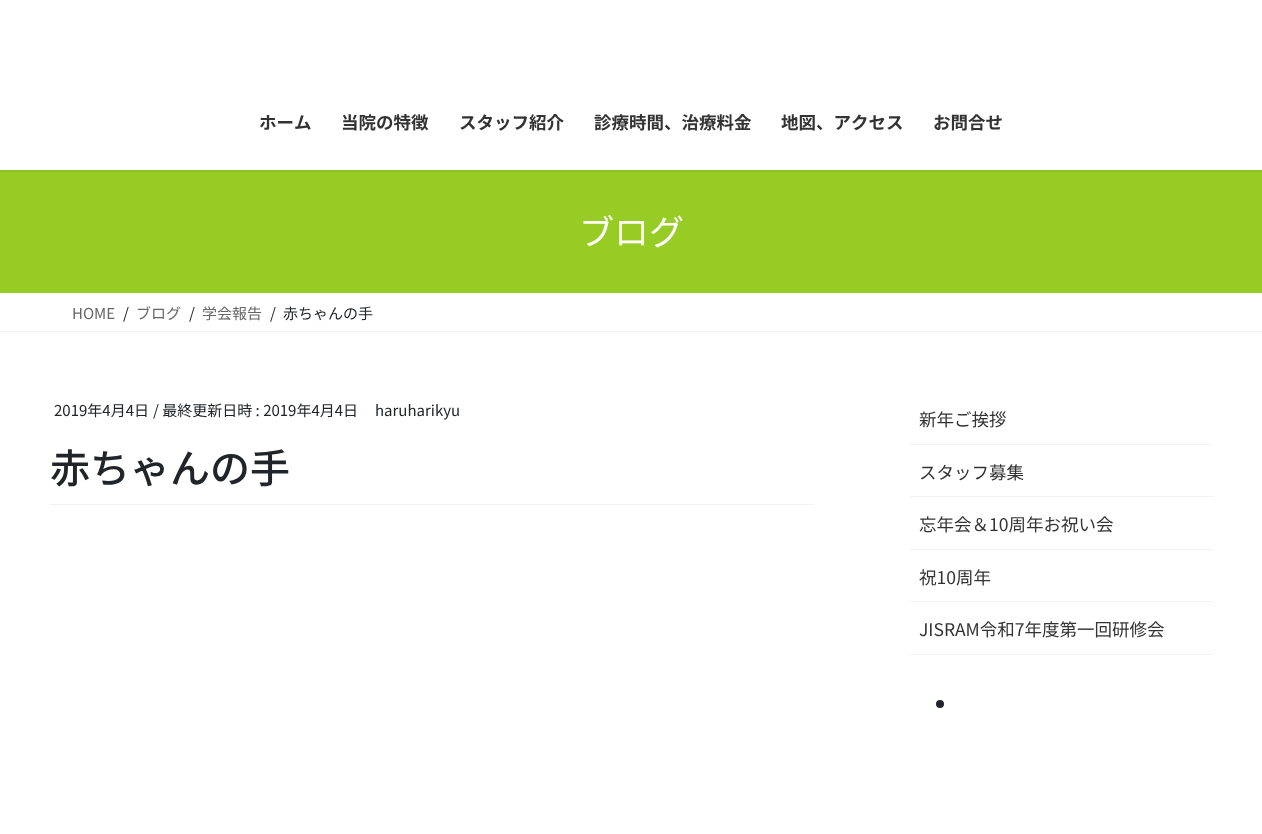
<!DOCTYPE html>
<meta charset="utf-8">
<style>body { margin: 0 } canvas { display: block }</style>
<canvas id="canvas" width="1262" height="834"></canvas>
<script type="module">
  const canvas = document.getElementById("canvas");
  const ctx = canvas.getContext("2d");
  ctx.miterLimit = 4;
  ctx.fontKerning = "normal";

  ctx.fillStyle = "#ffffff";
  ctx.fillRect(0, 0, 1262, 834);
  ctx.fillStyle = "#97cc24";
  ctx.fillRect(0, 170, 1262, 123);
  ctx.save();
  ctx.beginPath();
  ctx.rect(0, 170, 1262, 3);
  ctx.clip();
  ctx.fillStyle = "rgba(0, 0, 0, 0.1)";
  ctx.filter = "blur(2px)";
  ctx.beginPath();
  ctx.rect(0, 1, 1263, 170);
  ctx.fill();
  ctx.filter = "none";
  ctx.restore();
  ctx.font = "bold 17.5px Noto Sans JP";
  ctx.fillStyle = "#333333";
  ctx.fillText("ホーム", 259, 129);
  ctx.fillText("当院の特徴", 341, 129);
  ctx.fillText("スタッフ紹介", 459, 129);
  ctx.fillText("診療時間、治療料金", 594, 129);
  ctx.fillText("地図、アクセス", 781, 129);
  ctx.fillText("お問合せ", 933, 129);
  ctx.font = "35px Noto Sans JP";
  ctx.fillStyle = "#ffffff";
  ctx.fillText("ブログ", 579, 245);
  ctx.fillStyle = "#f2f2f2";
  ctx.fillRect(0, 331, 1262, 1);
  ctx.font = "15px Noto Sans JP";
  ctx.fillStyle = "#666666";
  ctx.fillText("HOME", 72, 319);
  ctx.fillStyle = "#212529";
  ctx.fillText("/", 123, 319);
  ctx.fillStyle = "#666666";
  ctx.fillText("ブログ", 136, 319);
  ctx.fillStyle = "#212529";
  ctx.fillText("/", 189, 319);
  ctx.fillStyle = "#666666";
  ctx.fillText("学会報告", 202, 319);
  ctx.fillStyle = "#212529";
  ctx.fillText("/", 270, 319);
  ctx.fillText("赤ちゃんの手", 283, 319);
  ctx.fillStyle = "#f2f2f2";
  ctx.fillRect(50, 504, 763, 1);
  ctx.fillStyle = "#212529";
  ctx.fillText("2019年4月4日", 54, 416);
  ctx.fillText("/ 最終更新日時 : 2019年4月4日", 153, 416);
  ctx.fillText("haruharikyu", 375, 416);
  ctx.font = "500 40px Noto Sans JP";
  ctx.fillText("赤ちゃんの手", 50, 483);
  ctx.fillStyle = "#f2f2f2";
  ctx.fillRect(910, 444, 303, 1);
  ctx.font = "17.5px Noto Sans JP";
  ctx.fillStyle = "#333333";
  ctx.fillText("新年ご挨拶", 919, 426);
  ctx.fillStyle = "#f2f2f2";
  ctx.fillRect(910, 496, 303, 1);
  ctx.fillStyle = "#333333";
  ctx.fillText("スタッフ募集", 919, 479);
  ctx.fillStyle = "#f2f2f2";
  ctx.fillRect(910, 549, 303, 1);
  ctx.fillStyle = "#333333";
  ctx.fillText("忘年会＆10周年お祝い会", 919, 531);
  ctx.fillStyle = "#f2f2f2";
  ctx.fillRect(910, 601, 303, 1);
  ctx.fillStyle = "#333333";
  ctx.fillText("祝10周年", 919, 584);
  ctx.fillStyle = "#f2f2f2";
  ctx.fillRect(910, 654, 303, 1);
  ctx.fillStyle = "#333333";
  ctx.fillText("JISRAM令和7年度第一回研修会", 919, 636);
  ctx.fillStyle = "#212529";
  ctx.beginPath();
  ctx.arc(940, 704, 4, 0, Math.PI * 2);
  ctx.fill();
</script>
